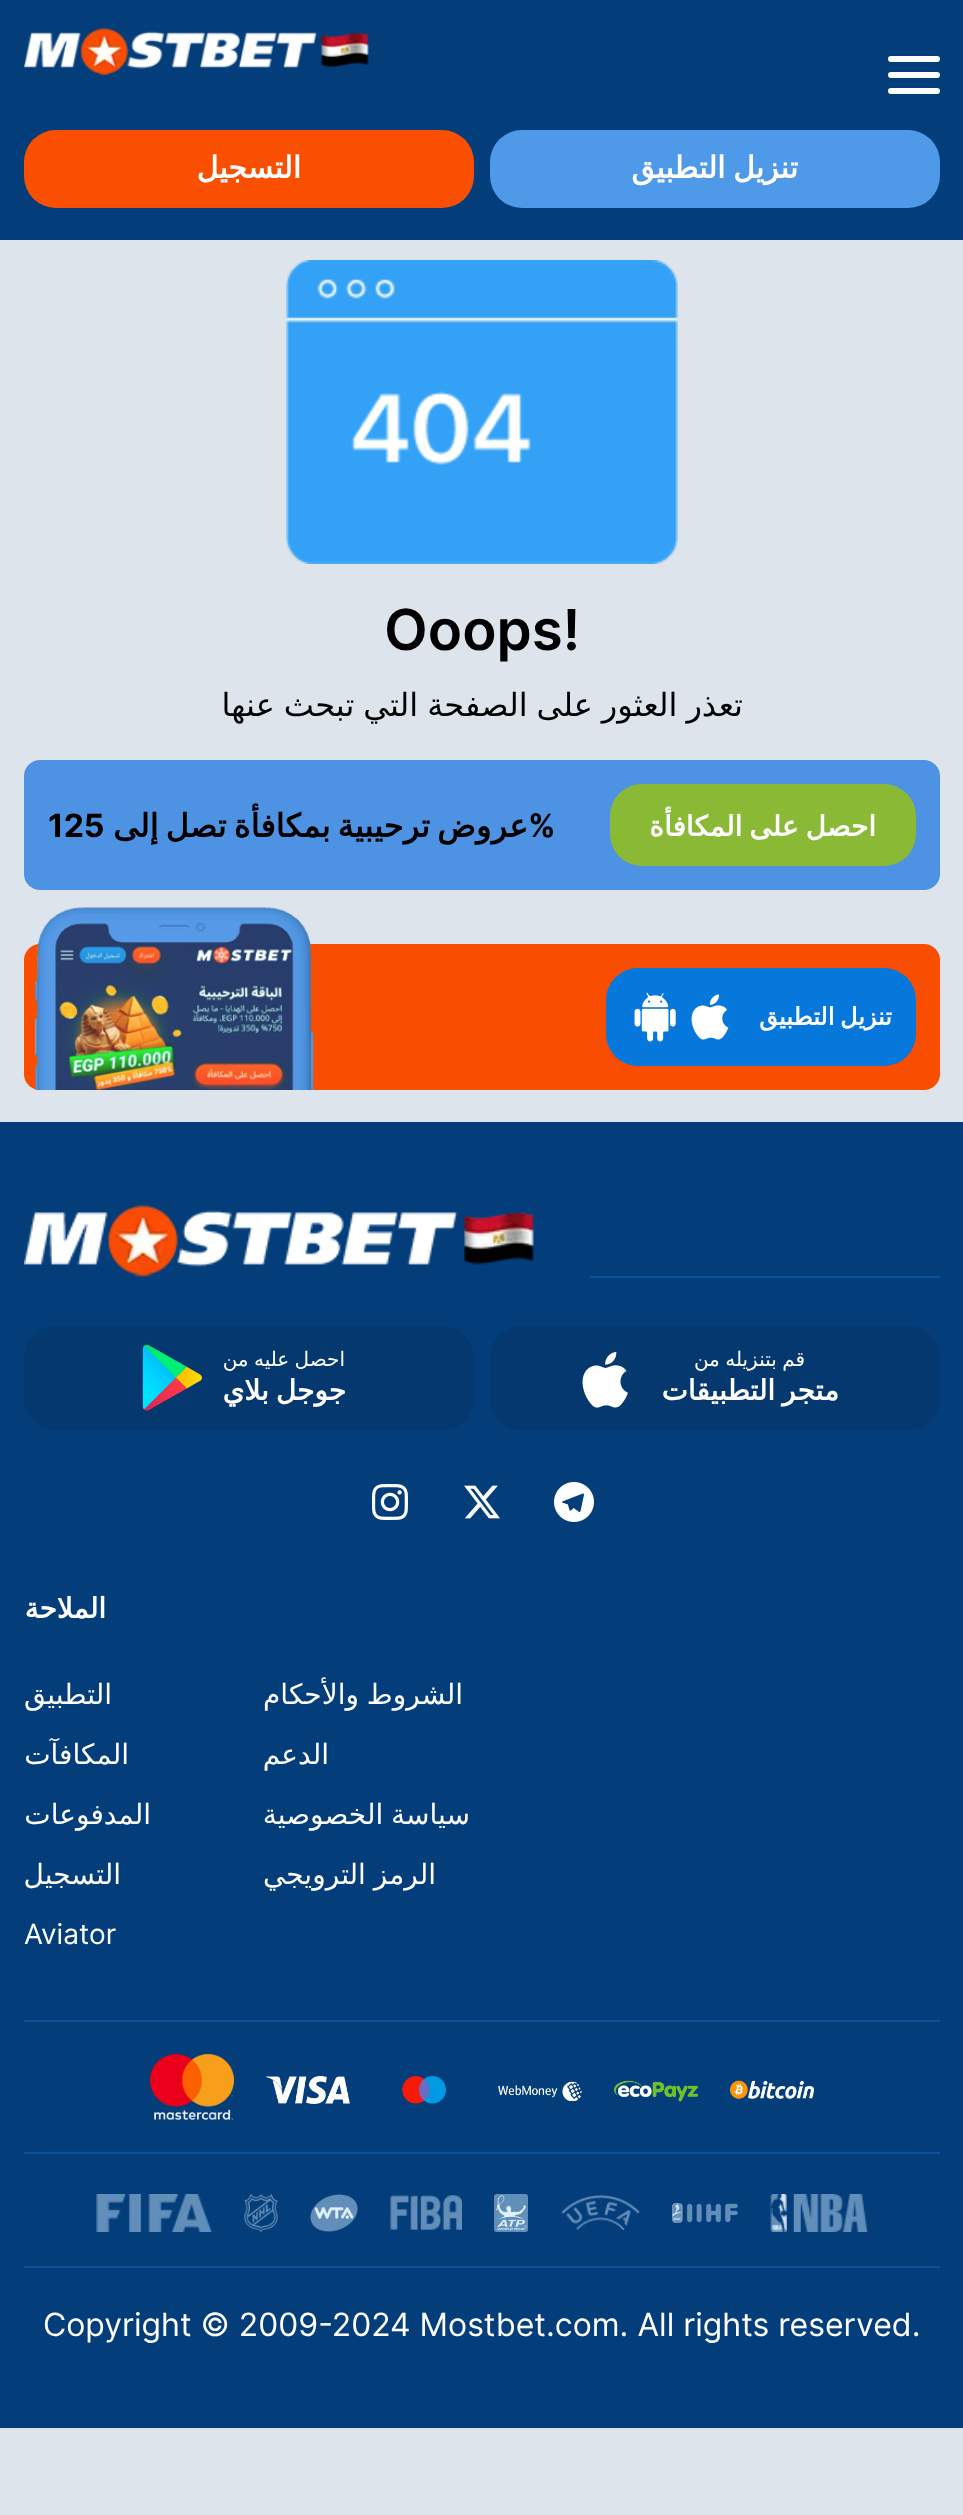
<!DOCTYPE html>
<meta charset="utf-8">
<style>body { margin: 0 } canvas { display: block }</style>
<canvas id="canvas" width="963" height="2515"></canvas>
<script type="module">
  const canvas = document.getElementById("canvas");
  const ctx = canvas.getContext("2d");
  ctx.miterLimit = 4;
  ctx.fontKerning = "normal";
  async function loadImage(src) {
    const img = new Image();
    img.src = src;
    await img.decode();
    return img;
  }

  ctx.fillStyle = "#dde4ec";
  ctx.fillRect(0, 0, 963, 2515);
  ctx.fillStyle = "#033d7a";
  ctx.fillRect(0, 0, 963, 240);
  ctx.fillStyle = "#ffffff";
  ctx.beginPath();
  ctx.roundRect(888, 56, 52, 6, 3);
  ctx.fill();
  ctx.beginPath();
  ctx.roundRect(888, 72, 52, 6, 3);
  ctx.fill();
  ctx.beginPath();
  ctx.roundRect(888, 88, 52, 6, 3);
  ctx.fill();
  ctx.drawImage(await loadImage("img1.png"), 24, 27, 345, 49);
  ctx.fillStyle = "#4f99e9";
  ctx.beginPath();
  ctx.roundRect(490, 130, 450, 78, 32);
  ctx.fill();
  ctx.wordSpacing = "-2px";
  ctx.direction = "rtl";
  ctx.font = "bold 30px DejaVu Sans";
  ctx.fillStyle = "#ffffff";
  ctx.fillText("تنزيل التطبيق", 798, 178);
  ctx.fillStyle = "#fa4f00";
  ctx.beginPath();
  ctx.roundRect(24, 130, 450, 78, 32);
  ctx.fill();
  ctx.wordSpacing = "0px";
  ctx.fillStyle = "#ffffff";
  ctx.fillText("التسجيل", 301, 178);
  ctx.drawImage(await loadImage("img2.png"), 286, 260, 392, 304);
  ctx.direction = "ltr";
  ctx.font = "600 56.5px Inter";
  ctx.fillStyle = "#000000";
  ctx.fillText("Ooops!", 384, 650);
  ctx.wordSpacing = "-1.25px";
  ctx.direction = "rtl";
  ctx.font = "32px DejaVu Sans";
  ctx.fillText("تعذر العثور على الصفحة التي تبحث عنها", 743, 716);
  ctx.fillStyle = "#4e92e3";
  ctx.beginPath();
  ctx.roundRect(24, 760, 916, 130, 16);
  ctx.fill();
  ctx.fillStyle = "#8aba35";
  ctx.beginPath();
  ctx.roundRect(610, 784, 306, 82, 32);
  ctx.fill();
  ctx.wordSpacing = "-2px";
  ctx.font = "bold 28px DejaVu Sans";
  ctx.fillStyle = "#ffffff";
  ctx.fillText("احصل على المكافأة", 876, 836);
  ctx.wordSpacing = "0px";
  ctx.direction = "ltr";
  ctx.font = "bold 32px Inter";
  ctx.fillStyle = "#000000";
  ctx.fillText("%", 528, 837);
  ctx.wordSpacing = "-3px";
  ctx.direction = "rtl";
  ctx.font = "bold 32px DejaVu Sans";
  ctx.fillText("عروض ترحيبية بمكافأة تصل إلى", 528, 837);
  ctx.wordSpacing = "0px";
  ctx.direction = "ltr";
  ctx.font = "bold 32px Inter";
  ctx.fillText("125", 48, 837);
  ctx.fillStyle = "#f94d00";
  ctx.beginPath();
  ctx.roundRect(24, 944, 916, 146, 16);
  ctx.fill();
  ctx.fillStyle = "#0677db";
  ctx.beginPath();
  ctx.roundRect(606, 968, 310, 98, 32);
  ctx.fill();
  ctx.wordSpacing = "-2px";
  ctx.direction = "rtl";
  ctx.font = "bold 24px DejaVu Sans";
  ctx.fillStyle = "#ffffff";
  ctx.fillText("تنزيل التطبيق", 892, 1025);
  ctx.drawImage(await loadImage("img3.png"), 691, 994, 38, 46);
  ctx.drawImage(await loadImage("img4.png"), 634, 992, 42, 50);
  ctx.drawImage(await loadImage("img5.png"), 34, 907, 280, 183);
  ctx.fillStyle = "#033d7a";
  ctx.fillRect(0, 1122, 963, 1306);
  ctx.fillStyle = "#0a519e";
  ctx.fillRect(590, 1276, 350, 2);
  ctx.drawImage(await loadImage("img6.png"), 24, 1205, 510, 72);
  ctx.fillRect(24, 2020, 916, 2);
  ctx.fillStyle = "#04386e";
  ctx.beginPath();
  ctx.roundRect(490, 1326, 450, 104, 32);
  ctx.fill();
  ctx.drawImage(await loadImage("img7.png"), 582, 1351, 46, 57);
  ctx.wordSpacing = "-1px";
  ctx.font = "20px DejaVu Sans";
  ctx.fillStyle = "#ffffff";
  ctx.fillText("قم بتنزيله من", 805, 1366);
  ctx.wordSpacing = "-2px";
  ctx.font = "bold 28px DejaVu Sans";
  ctx.fillText("متجر التطبيقات", 839, 1400);
  ctx.fillStyle = "#04386e";
  ctx.beginPath();
  ctx.roundRect(24, 1326, 450, 104, 32);
  ctx.fill();
  ctx.drawImage(await loadImage("img8.png"), 142, 1344, 60, 67);
  ctx.wordSpacing = "-1px";
  ctx.font = "20px DejaVu Sans";
  ctx.fillStyle = "#ffffff";
  ctx.fillText("احصل عليه من", 345, 1366);
  ctx.wordSpacing = "-2px";
  ctx.font = "bold 28px DejaVu Sans";
  ctx.fillText("جوجل بلاي", 346, 1400);
  ctx.drawImage(await loadImage("img9.png"), 554, 1482, 40, 40);
  ctx.drawImage(await loadImage("img10.png"), 464, 1485, 36, 34);
  ctx.drawImage(await loadImage("img11.png"), 372, 1484, 36, 36);
  ctx.wordSpacing = "0px";
  ctx.fillText("الملاحة", 106, 1618);
  ctx.wordSpacing = "-1px";
  ctx.font = "28px DejaVu Sans";
  ctx.fillText("الشروط والأحكام", 463, 1704);
  ctx.wordSpacing = "0px";
  ctx.fillText("الدعم", 329, 1764);
  ctx.wordSpacing = "-1px";
  ctx.fillText("سياسة الخصوصية", 470, 1824);
  ctx.fillText("الرمز الترويجي", 436, 1884);
  ctx.wordSpacing = "0px";
  ctx.fillText("التطبيق", 112, 1704);
  ctx.fillText("المكافآت", 129, 1764);
  ctx.fillText("المدفوعات", 151, 1824);
  ctx.fillText("التسجيل", 121, 1884);
  ctx.direction = "ltr";
  ctx.font = "28px Inter";
  ctx.fillText("Aviator", 24, 1944);
  ctx.fillStyle = "#0a519e";
  ctx.fillRect(24, 2152, 916, 2);
  ctx.drawImage(await loadImage("img12.png"), 730, 2080, 84, 19);
  ctx.drawImage(await loadImage("img13.png"), 614, 2080, 84, 22);
  ctx.drawImage(await loadImage("img14.png"), 498, 2081, 84, 20);
  ctx.drawImage(await loadImage("img15.png"), 402, 2076, 44, 28);
  ctx.drawImage(await loadImage("img16.png"), 266, 2076, 84, 28);
  ctx.drawImage(await loadImage("img17.png"), 150, 2054, 84, 66);
  ctx.fillRect(24, 2266, 916, 2);
  ctx.drawImage(await loadImage("img18.png"), 770, 2194, 98, 38);
  ctx.drawImage(await loadImage("img19.png"), 672, 2203, 66, 20);
  ctx.drawImage(await loadImage("img20.png"), 561, 2195, 79, 36);
  ctx.drawImage(await loadImage("img21.png"), 494, 2194, 34, 38);
  ctx.drawImage(await loadImage("img22.png"), 390, 2195, 72, 35);
  ctx.drawImage(await loadImage("img23.png"), 310, 2194, 48, 38);
  ctx.drawImage(await loadImage("img24.png"), 244, 2194, 34, 38);
  ctx.drawImage(await loadImage("img25.png"), 96, 2194, 116, 38);
  ctx.font = "32px Inter";
  ctx.fillStyle = "#ffffff";
  ctx.fillText("Copyright © 2009-2024 Mostbet.com. All rights reserved.", 43, 2336);
</script>
